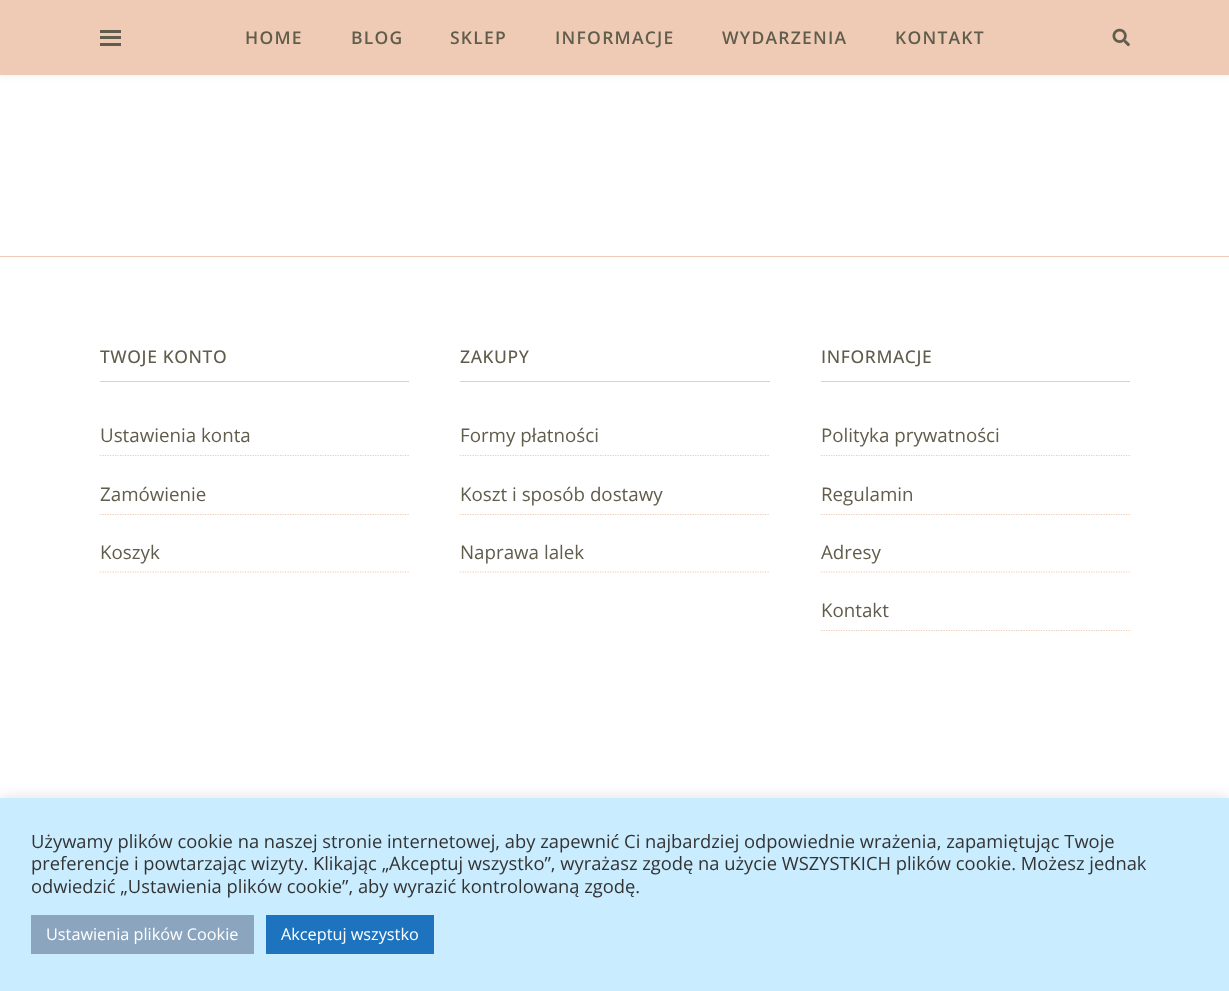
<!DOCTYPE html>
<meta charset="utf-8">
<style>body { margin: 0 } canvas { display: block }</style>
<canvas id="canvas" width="1229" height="991"></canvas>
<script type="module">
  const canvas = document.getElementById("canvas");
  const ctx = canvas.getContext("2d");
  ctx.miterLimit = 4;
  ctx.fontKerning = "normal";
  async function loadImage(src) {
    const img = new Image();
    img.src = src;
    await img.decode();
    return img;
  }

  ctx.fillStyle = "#ffffff";
  ctx.fillRect(0, 0, 1229, 991);
  ctx.fillStyle = "rgba(97, 93, 76, 0.1)";
  ctx.filter = "blur(3px)";
  ctx.beginPath();
  ctx.rect(0, 1, 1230, 75);
  ctx.fill();
  ctx.filter = "none";
  ctx.fillStyle = "#efcbb5";
  ctx.fillRect(0, 0, 1229, 75);
  ctx.fillStyle = "#615d4c";
  ctx.fillRect(100, 30, 21, 3);
  ctx.fillRect(100, 36, 21, 3);
  ctx.fillRect(100, 43, 21, 3);
  ctx.letterSpacing = "1.25px";
  ctx.font = "600 17.5px Open Sans";
  ctx.fillText("HOME", 245, 44);
  ctx.fillText("BLOG", 351, 44);
  ctx.fillText("SKLEP", 450, 44);
  ctx.fillText("INFORMACJE", 555, 44);
  ctx.fillText("WYDARZENIA", 722, 44);
  ctx.fillText("KONTAKT", 895, 44);
  ctx.drawImage(await loadImage("img1.png"), 1112, 28, 18, 19);
  ctx.fillStyle = "#efcbb5";
  ctx.fillRect(0, 256, 1229, 1);
  ctx.fillRect(100, 381, 309, 1);
  ctx.letterSpacing = "0.6px";
  ctx.font = "500 17.5px Open Sans";
  ctx.fillStyle = "#615d4c";
  ctx.fillText("TWOJE KONTO", 100, 363);
  ctx.beginPath();
  ctx.moveTo(100, 455.5);
  ctx.lineTo(409, 455.5);
  ctx.strokeStyle = "#efcbb5";
  ctx.lineWidth = 1.2;
  ctx.setLineDash([1.25, 1.25]);
  ctx.stroke();
  ctx.letterSpacing = "0px";
  ctx.font = "18.75px Open Sans";
  ctx.fillText("Ustawienia konta", 100, 442);
  ctx.beginPath();
  ctx.moveTo(100, 514.5);
  ctx.lineTo(409, 514.5);
  ctx.stroke();
  ctx.fillText("Zamówienie", 100, 501);
  ctx.beginPath();
  ctx.moveTo(100, 572);
  ctx.lineTo(409, 572);
  ctx.stroke();
  ctx.fillText("Koszyk", 100, 559);
  ctx.fillStyle = "#efcbb5";
  ctx.fillRect(460, 381, 310, 1);
  ctx.letterSpacing = "0.6px";
  ctx.font = "500 17.5px Open Sans";
  ctx.fillStyle = "#615d4c";
  ctx.fillText("ZAKUPY", 460, 363);
  ctx.beginPath();
  ctx.moveTo(460, 455.5);
  ctx.lineTo(770, 455.5);
  ctx.stroke();
  ctx.letterSpacing = "0px";
  ctx.font = "18.75px Open Sans";
  ctx.fillText("Formy płatności", 460, 442);
  ctx.beginPath();
  ctx.moveTo(460, 514.5);
  ctx.lineTo(770, 514.5);
  ctx.stroke();
  ctx.fillText("Koszt i sposób dostawy", 460, 501);
  ctx.beginPath();
  ctx.moveTo(460, 572);
  ctx.lineTo(770, 572);
  ctx.stroke();
  ctx.fillText("Naprawa lalek", 460, 559);
  ctx.fillStyle = "#efcbb5";
  ctx.fillRect(821, 381, 309, 1);
  ctx.letterSpacing = "0.6px";
  ctx.font = "500 17.5px Open Sans";
  ctx.fillStyle = "#615d4c";
  ctx.fillText("INFORMACJE", 821, 363);
  ctx.beginPath();
  ctx.moveTo(821, 455.5);
  ctx.lineTo(1130, 455.5);
  ctx.stroke();
  ctx.letterSpacing = "0px";
  ctx.font = "18.75px Open Sans";
  ctx.fillText("Polityka prywatności", 821, 442);
  ctx.beginPath();
  ctx.moveTo(821, 514.5);
  ctx.lineTo(1130, 514.5);
  ctx.stroke();
  ctx.fillText("Regulamin", 821, 501);
  ctx.beginPath();
  ctx.moveTo(821, 572);
  ctx.lineTo(1130, 572);
  ctx.stroke();
  ctx.fillText("Adresy", 821, 559);
  ctx.beginPath();
  ctx.moveTo(821, 630.5);
  ctx.lineTo(1130, 630.5);
  ctx.stroke();
  ctx.fillText("Kontakt", 821, 617);
  ctx.fillStyle = "rgba(172, 171, 171, 0.3)";
  ctx.filter = "blur(6px)";
  ctx.beginPath();
  ctx.rect(0, 796, 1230, 194);
  ctx.fill();
  ctx.filter = "none";
  ctx.fillStyle = "#c9ecff";
  ctx.fillRect(0, 798, 1229, 193);
  ctx.font = "18.33px Open Sans";
  ctx.fillStyle = "#333333";
  ctx.fillText("Używamy plików cookie na naszej stronie internetowej, aby zapewnić Ci najbardziej odpowiednie wrażenia, zapamiętując Twoje", 31, 848);
  ctx.fillText("preferencje i powtarzając wizyty. Klikając „Akceptuj wszystko”, wyrażasz zgodę na użycie WSZYSTKICH plików cookie. Możesz jednak", 31, 870);
  ctx.fillText("odwiedzić „Ustawienia plików cookie”, aby wyrazić kontrolowaną zgodę.", 31, 893);
  ctx.fillStyle = "#8ba5bf";
  ctx.fillRect(31, 915, 223, 39);
  ctx.font = "16.25px Open Sans";
  ctx.fillStyle = "#ffffff";
  ctx.fillText("Ustawienia plików Cookie", 46, 940);
  ctx.fillStyle = "#1e73be";
  ctx.fillRect(266, 915, 168, 39);
  ctx.fillStyle = "#ffffff";
  ctx.fillText("Akceptuj wszystko", 281, 940);
</script>
